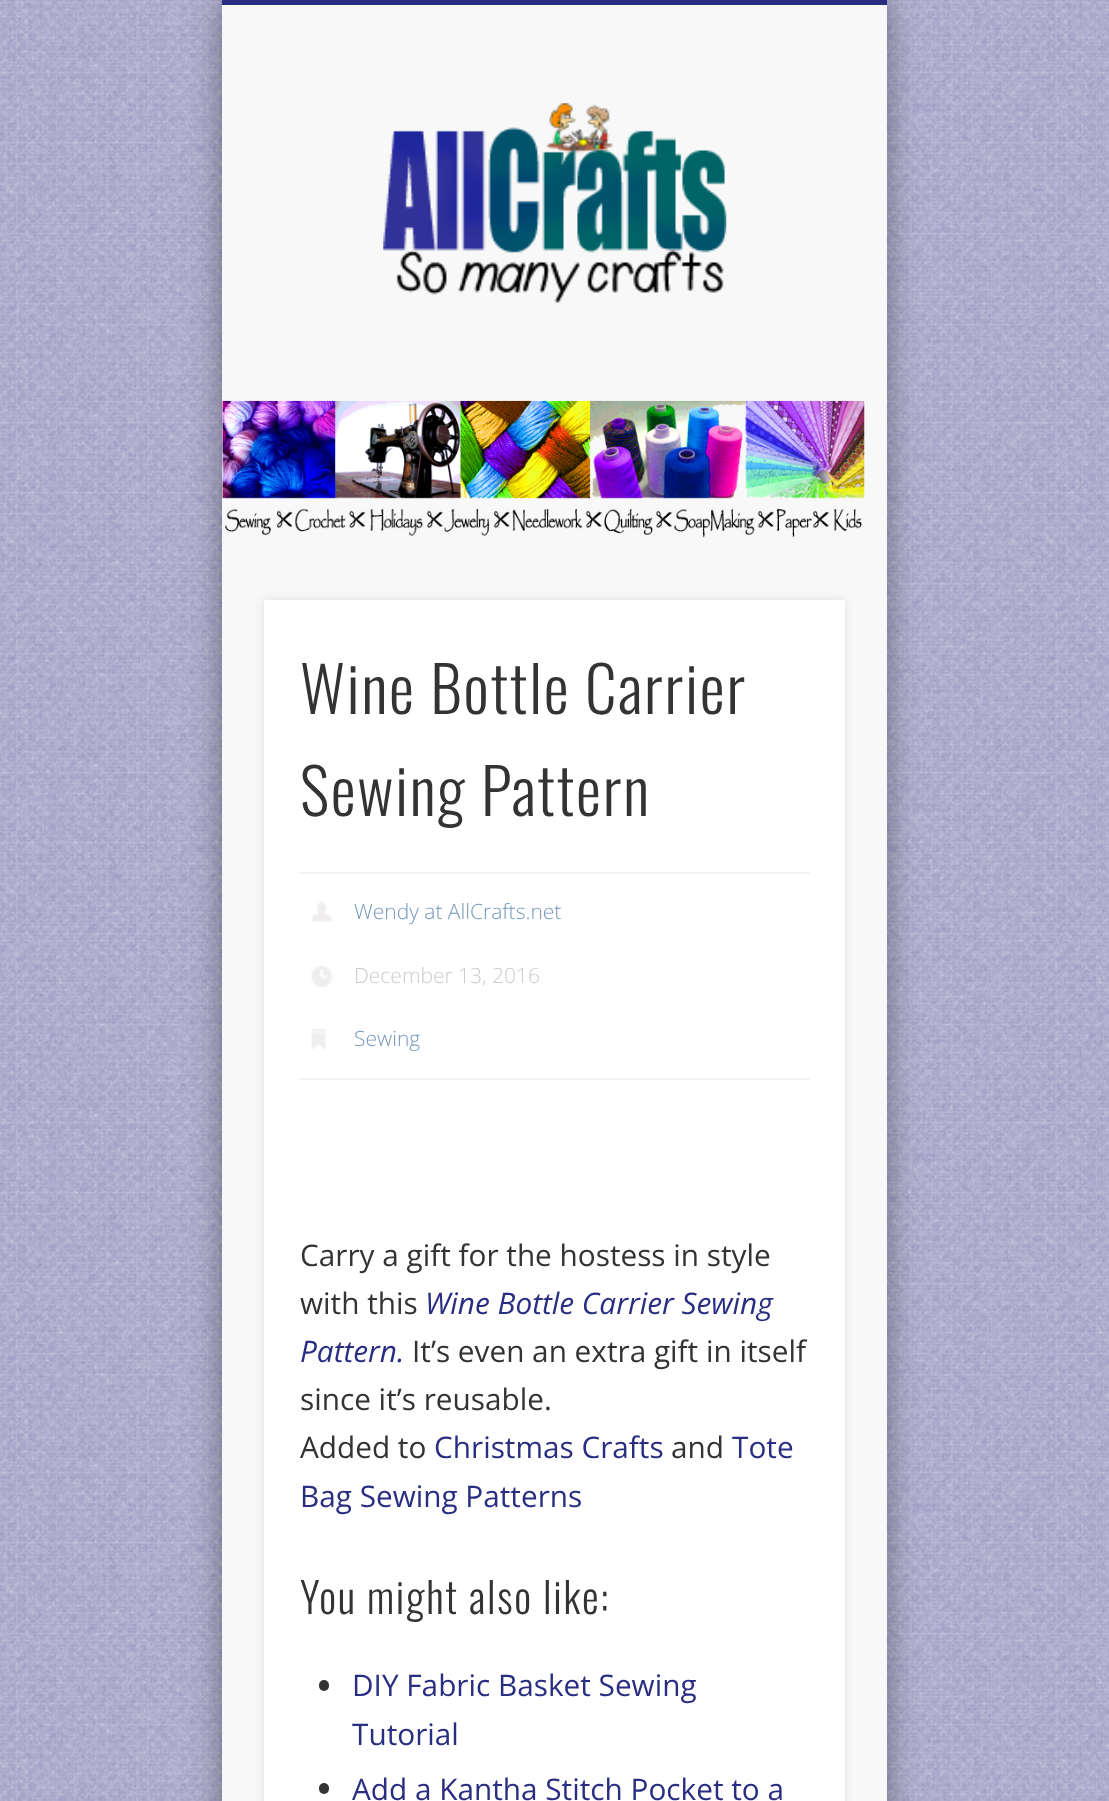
<!DOCTYPE html>
<meta charset="utf-8">
<style>body { margin: 0 } canvas { display: block }</style>
<canvas id="canvas" width="1109" height="1801"></canvas>
<script type="module">
  const canvas = document.getElementById("canvas");
  const ctx = canvas.getContext("2d");
  ctx.miterLimit = 4;
  ctx.fontKerning = "normal";
  async function loadImage(src) {
    const img = new Image();
    img.src = src;
    await img.decode();
    return img;
  }

  ctx.fillStyle = "#ffffff";
  ctx.fillRect(0, 0, 1109, 1801);
  ctx.drawImage(await loadImage("img1.png"), 0, 0, 1109, 1801);
  ctx.fillStyle = "rgba(0, 0, 0, 0.4)";
  ctx.filter = "blur(16px)";
  ctx.beginPath();
  ctx.rect(222, 0, 665, 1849);
  ctx.fill();
  ctx.filter = "none";
  ctx.fillStyle = "#f8f8f8";
  ctx.fillRect(222, 5, 665, 1796);
  ctx.fillStyle = "#2a2e82";
  ctx.fillRect(222, 0, 665, 5);
  ctx.drawImage(await loadImage("img2.png"), 383, 103, 344, 200);
  ctx.drawImage(await loadImage("img3.png"), 222, 400, 643, 138);
  ctx.fillStyle = "rgba(0, 0, 0, 0.1)";
  ctx.filter = "blur(4.5px)";
  ctx.beginPath();
  ctx.rect(264, 600, 581, 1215);
  ctx.fill();
  ctx.filter = "none";
  ctx.fillStyle = "#ffffff";
  ctx.fillRect(264, 600, 581, 1201);
  ctx.letterSpacing = "1.75px";
  ctx.font = "300 63px Oswald";
  ctx.fillStyle = "#333333";
  ctx.fillText("Wine Bottle Carrier", 300, 714);
  ctx.fillText("Sewing Pattern", 300, 816);
  ctx.fillStyle = "#f4f4f4";
  ctx.fillRect(299, 872, 511, 2);
  ctx.fillRect(299, 1078, 511, 2);
  ctx.drawImage(await loadImage("img4.png"), 311, 901, 22, 21);
  ctx.letterSpacing = "0px";
  ctx.font = "300 21px Open Sans";
  ctx.fillStyle = "#7597b9";
  ctx.fillText("Wendy at AllCrafts.net", 354, 919);
  ctx.drawImage(await loadImage("img5.png"), 311, 966, 22, 21);
  ctx.fillStyle = "#cccccc";
  ctx.fillText("December 13, 2016", 354, 983);
  ctx.drawImage(await loadImage("img6.png"), 311, 1029, 15, 21);
  ctx.fillStyle = "#7597b9";
  ctx.fillText("Sewing", 354, 1046);
  ctx.font = "29.75px Open Sans";
  ctx.fillStyle = "#333333";
  ctx.fillText("Carry a gift for the hostess in style", 300, 1266);
  ctx.fillText("with this", 300, 1314);
  ctx.font = "italic 29.75px Open Sans";
  ctx.fillStyle = "#2a2e82";
  ctx.fillText("Wine Bottle Carrier Sewing", 425, 1314);
  ctx.fillText("Pattern.", 300, 1362);
  ctx.font = "29.75px Open Sans";
  ctx.fillStyle = "#333333";
  ctx.fillText("It’s even an extra gift in itself", 412, 1362);
  ctx.fillText("since it’s reusable.", 300, 1410);
  ctx.fillText("Added to", 300, 1458);
  ctx.fillStyle = "#2a2e82";
  ctx.fillText("Christmas Crafts", 434, 1458);
  ctx.fillStyle = "#333333";
  ctx.fillText("and", 671, 1458);
  ctx.fillStyle = "#2a2e82";
  ctx.fillText("Tote", 732, 1458);
  ctx.fillText("Bag Sewing Patterns", 300, 1507);
  ctx.letterSpacing = "1.75px";
  ctx.font = "300 42px Oswald";
  ctx.fillStyle = "#333333";
  ctx.fillText("You might also like:", 300, 1614);
  ctx.beginPath();
  ctx.roundRect(319, 1680, 10, 11, 5);
  ctx.fill();
  ctx.letterSpacing = "0px";
  ctx.font = "29.75px Open Sans";
  ctx.fillStyle = "#2a2e82";
  ctx.fillText("DIY Fabric Basket Sewing", 352, 1696);
  ctx.fillText("Tutorial", 352, 1745);
  ctx.fillStyle = "#333333";
  ctx.beginPath();
  ctx.roundRect(319, 1783, 10, 11, 5);
  ctx.fill();
  ctx.fillStyle = "#2a2e82";
  ctx.fillText("Add a Kantha Stitch Pocket to a", 352, 1800);
</script>
